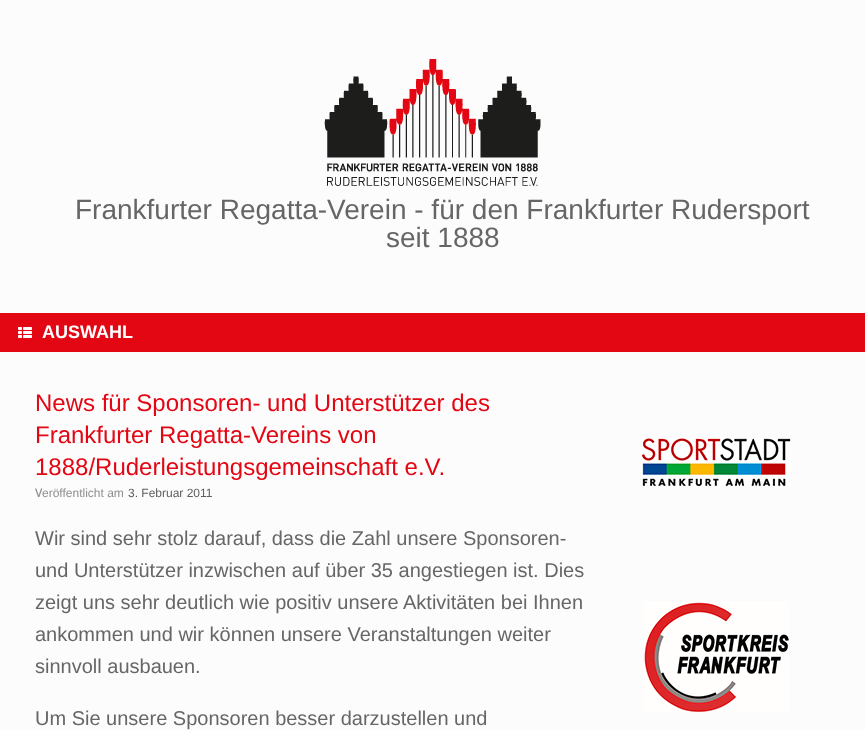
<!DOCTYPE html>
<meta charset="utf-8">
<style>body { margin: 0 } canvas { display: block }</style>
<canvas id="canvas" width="865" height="730"></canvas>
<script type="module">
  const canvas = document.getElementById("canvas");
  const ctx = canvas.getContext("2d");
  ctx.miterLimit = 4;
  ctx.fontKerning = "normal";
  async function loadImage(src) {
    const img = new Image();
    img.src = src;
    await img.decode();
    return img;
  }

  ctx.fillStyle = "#fcfcfc";
  ctx.fillRect(0, 0, 865, 730);
  ctx.drawImage(await loadImage("img1.png"), 324, 59, 217, 127);
  ctx.font = "28px Liberation Sans";
  ctx.fillStyle = "#666666";
  ctx.fillText("Frankfurter Regatta-Verein - für den Frankfurter Rudersport", 75, 219);
  ctx.fillText("seit 1888", 386, 247);
  ctx.fillStyle = "#e30613";
  ctx.fillRect(0, 313, 865, 39);
  ctx.drawImage(await loadImage("img2.png"), 18, 327, 14, 11);
  ctx.font = "bold 18px Liberation Sans";
  ctx.fillStyle = "#ffffff";
  ctx.fillText("AUSWAHL", 42, 338);
  ctx.font = "24px Liberation Sans";
  ctx.fillStyle = "#e30613";
  ctx.fillText("News für Sponsoren- und Unterstützer des", 35, 411);
  ctx.fillText("Frankfurter Regatta-Vereins von", 35, 443);
  ctx.fillText("1888/Ruderleistungsgemeinschaft e.V.", 35, 475);
  ctx.font = "500 12px Noto Sans";
  ctx.fillStyle = "#8f8f8f";
  ctx.fillText("V", 35, 497);
  ctx.font = "12px Liberation Sans";
  ctx.fillText("eröffentlicht am", 42, 497);
  ctx.fillStyle = "#5e5e5e";
  ctx.fillText("3. Februar 2011", 128, 497);
  ctx.font = "20px Liberation Sans";
  ctx.fillStyle = "#666666";
  ctx.fillText("Wir sind sehr stolz darauf, dass die Zahl unsere Sponsoren-", 35, 545);
  ctx.fillText("und Unterstützer inzwischen auf über 35 angestiegen ist. Dies", 35, 577);
  ctx.fillText("zeigt uns sehr deutlich wie positiv unsere Aktivitäten bei Ihnen", 35, 609);
  ctx.fillText("ankommen und wir können unsere Veranstaltungen weiter", 35, 641);
  ctx.fillText("sinnvoll ausbauen.", 35, 673);
  ctx.fillText("Um Sie unsere Sponsoren besser darzustellen und", 35, 725);
  ctx.drawImage(await loadImage("img3.png"), 641, 438, 150, 48);
  ctx.drawImage(await loadImage("img4.png"), 644, 602, 145, 110);
</script>
